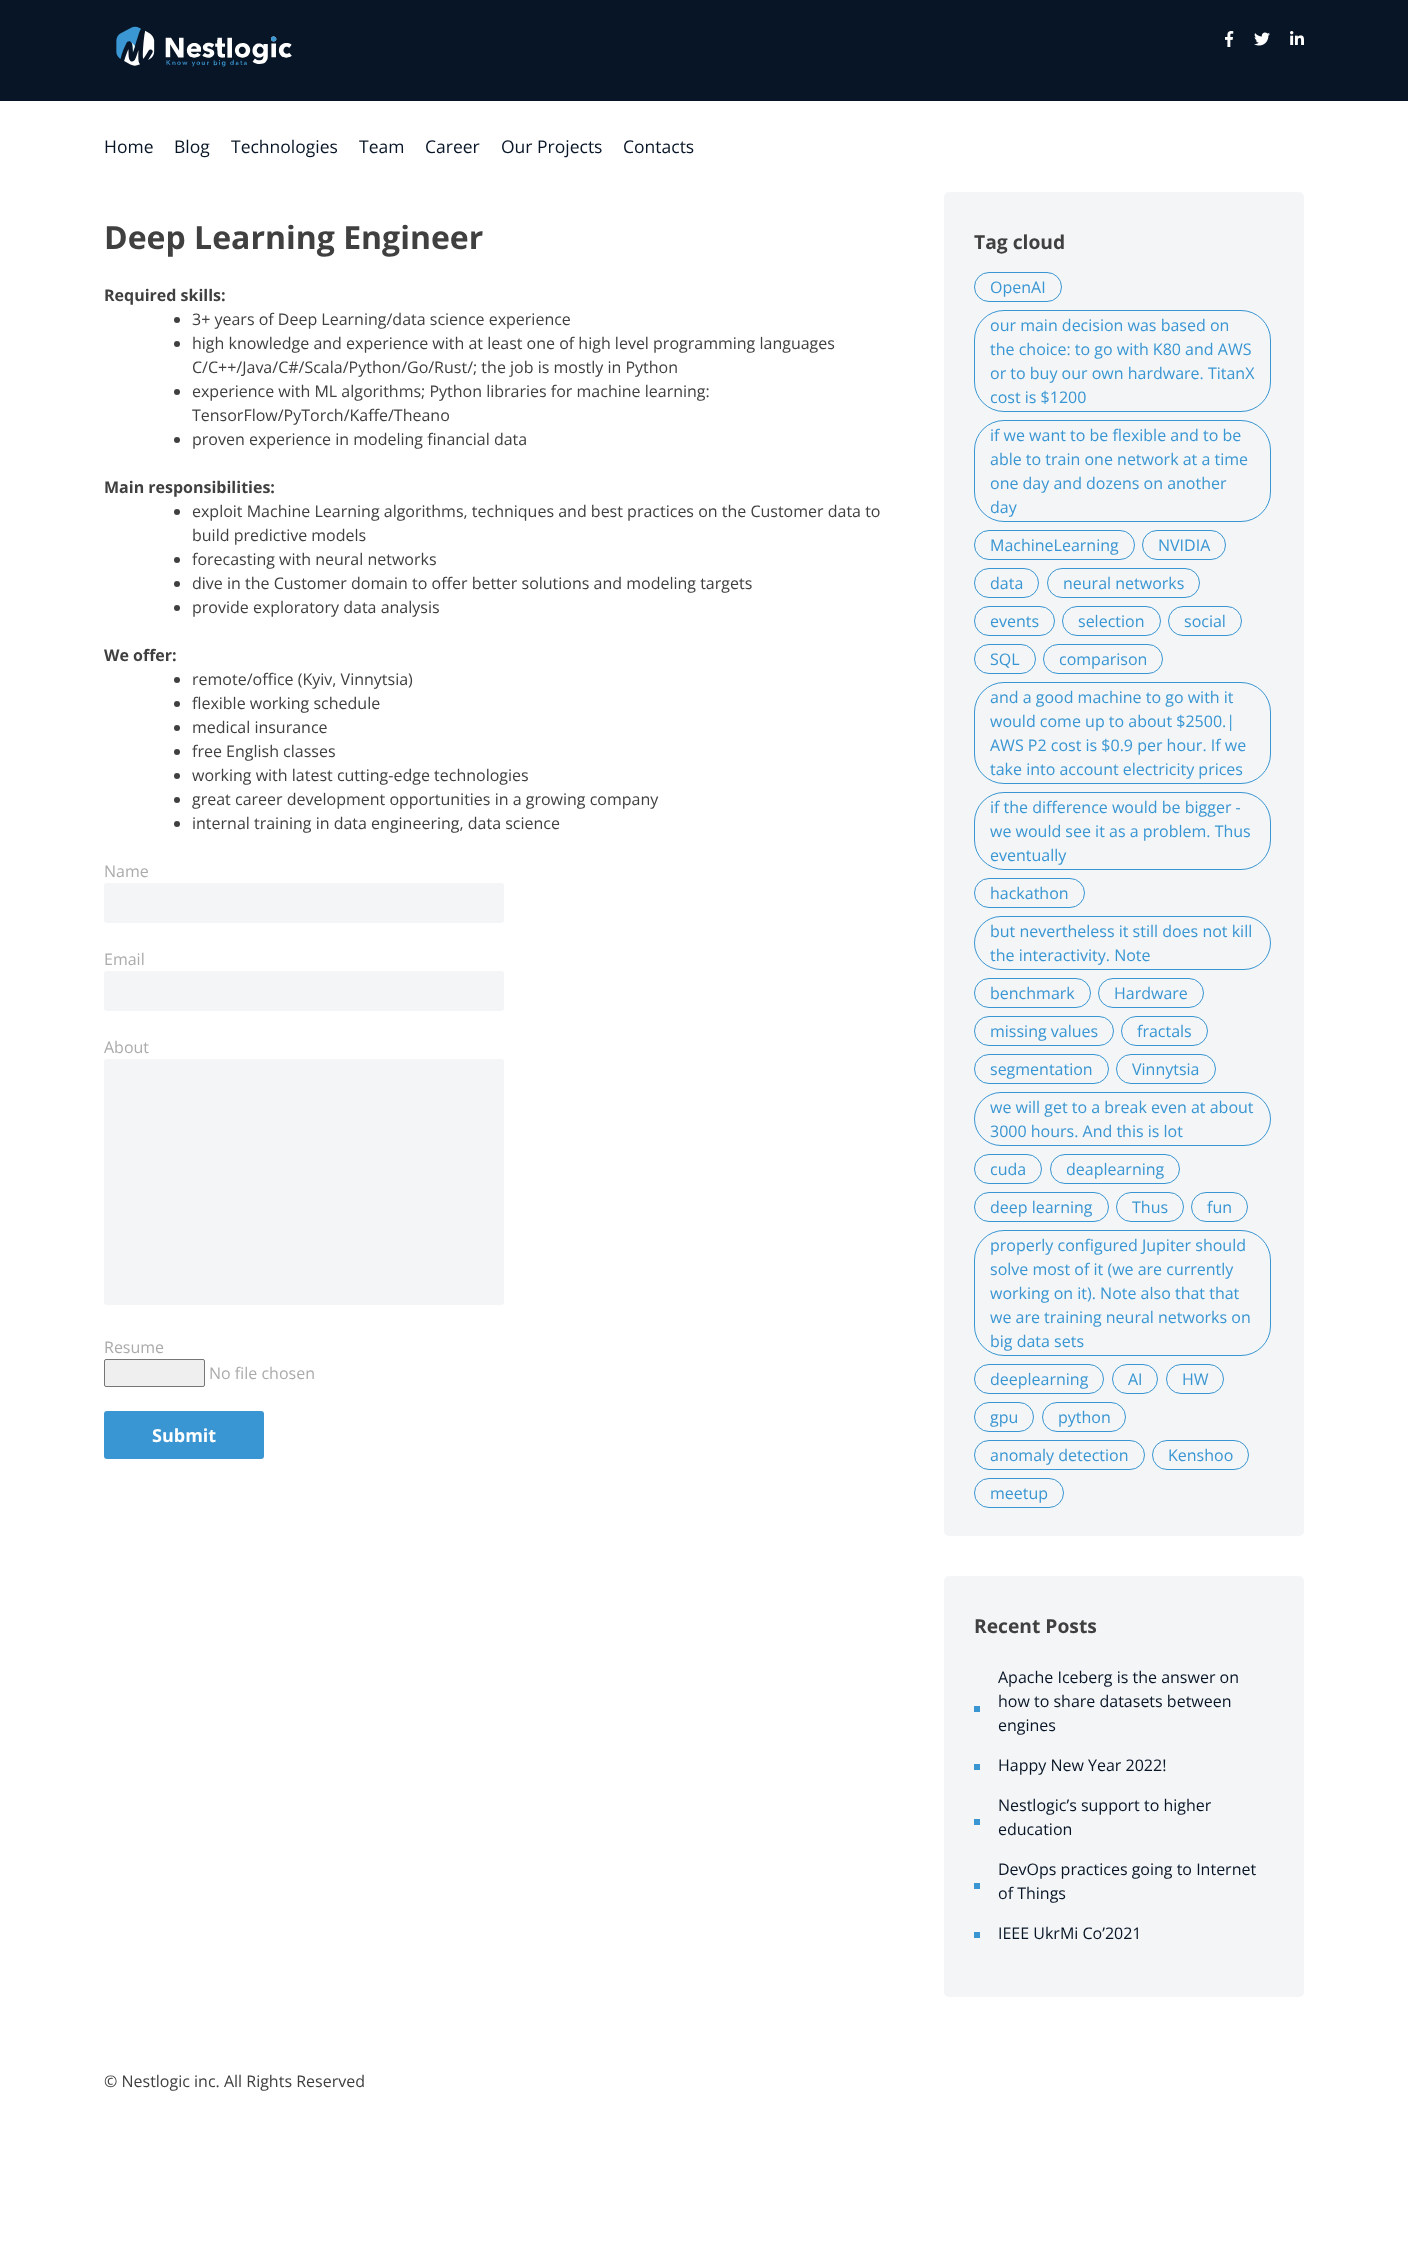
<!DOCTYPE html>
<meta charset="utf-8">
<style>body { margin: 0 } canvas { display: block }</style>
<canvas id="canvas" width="1408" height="2257"></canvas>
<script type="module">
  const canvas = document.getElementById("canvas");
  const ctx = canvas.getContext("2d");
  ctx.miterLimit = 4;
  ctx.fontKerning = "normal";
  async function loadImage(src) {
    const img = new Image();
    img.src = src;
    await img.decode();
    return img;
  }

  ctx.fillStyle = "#ffffff";
  ctx.fillRect(0, 0, 1408, 2257);
  ctx.fillStyle = "#081526";
  ctx.fillRect(0, 0, 1408, 101);
  ctx.drawImage(await loadImage("img1.png"), 116, 26, 176, 41);
  ctx.drawImage(await loadImage("img2.png"), 1225, 31, 9, 16);
  ctx.drawImage(await loadImage("img3.png"), 1254, 32, 16, 14);
  ctx.drawImage(await loadImage("img4.png"), 1290, 31, 14, 14);
  ctx.font = "17.5px Open Sans";
  ctx.fillText("Home", 104, 153);
  ctx.fillText("Blog", 174, 153);
  ctx.fillText("Technologies", 231, 153);
  ctx.fillText("Team", 359, 153);
  ctx.fillText("Career", 425, 153);
  ctx.fillText("Our Projects", 501, 153);
  ctx.fillText("Contacts", 623, 153);
  ctx.font = "bold 32px Open Sans";
  ctx.fillStyle = "#404040";
  ctx.fillText("Deep Learning Engineer", 104, 249);
  ctx.font = "bold 16px Open Sans";
  ctx.fillText("Required skills:", 104, 301);
  ctx.beginPath();
  ctx.arc(177, 320, 3, 0, Math.PI * 2);
  ctx.fill();
  ctx.font = "16px Open Sans";
  ctx.fillText("3+ years of Deep Learning/data science experience", 192, 325);
  ctx.beginPath();
  ctx.arc(177, 344, 3, 0, Math.PI * 2);
  ctx.fill();
  ctx.fillText("high knowledge and experience with at least one of high level programming languages", 192, 349);
  ctx.fillText("C/C++/Java/C#/Scala/Python/Go/Rust/; the job is mostly in Python", 192, 373);
  ctx.beginPath();
  ctx.arc(177, 392, 3, 0, Math.PI * 2);
  ctx.fill();
  ctx.fillText("experience with ML algorithms; Python libraries for machine learning:", 192, 397);
  ctx.fillText("TensorFlow/PyTorch/Kaffe/Theano", 192, 421);
  ctx.beginPath();
  ctx.arc(177, 440, 3, 0, Math.PI * 2);
  ctx.fill();
  ctx.fillText("proven experience in modeling financial data", 192, 445);
  ctx.font = "bold 16px Open Sans";
  ctx.fillText("Main responsibilities:", 104, 493);
  ctx.beginPath();
  ctx.arc(177, 512, 3, 0, Math.PI * 2);
  ctx.fill();
  ctx.font = "16px Open Sans";
  ctx.fillText("exploit Machine Learning algorithms, techniques and best practices on the Customer data to", 192, 517);
  ctx.fillText("build predictive models", 192, 541);
  ctx.beginPath();
  ctx.arc(177, 560, 3, 0, Math.PI * 2);
  ctx.fill();
  ctx.fillText("forecasting with neural networks", 192, 565);
  ctx.beginPath();
  ctx.arc(177, 584, 3, 0, Math.PI * 2);
  ctx.fill();
  ctx.fillText("dive in the Customer domain to offer better solutions and modeling targets", 192, 589);
  ctx.beginPath();
  ctx.arc(177, 608, 3, 0, Math.PI * 2);
  ctx.fill();
  ctx.fillText("provide exploratory data analysis", 192, 613);
  ctx.font = "bold 16px Open Sans";
  ctx.fillText("We offer:", 104, 661);
  ctx.beginPath();
  ctx.arc(177, 680, 3, 0, Math.PI * 2);
  ctx.fill();
  ctx.font = "16px Open Sans";
  ctx.fillText("remote/office (Kyiv, Vinnytsia)", 192, 685);
  ctx.beginPath();
  ctx.arc(177, 704, 3, 0, Math.PI * 2);
  ctx.fill();
  ctx.fillText("flexible working schedule", 192, 709);
  ctx.beginPath();
  ctx.arc(177, 728, 3, 0, Math.PI * 2);
  ctx.fill();
  ctx.fillText("medical insurance", 192, 733);
  ctx.beginPath();
  ctx.arc(177, 752, 3, 0, Math.PI * 2);
  ctx.fill();
  ctx.fillText("free English classes", 192, 757);
  ctx.beginPath();
  ctx.arc(177, 776, 3, 0, Math.PI * 2);
  ctx.fill();
  ctx.fillText("working with latest cutting-edge technologies", 192, 781);
  ctx.beginPath();
  ctx.arc(177, 800, 3, 0, Math.PI * 2);
  ctx.fill();
  ctx.fillText("great career development opportunities in a growing company", 192, 805);
  ctx.beginPath();
  ctx.arc(177, 824, 3, 0, Math.PI * 2);
  ctx.fill();
  ctx.fillText("internal training in data engineering, data science", 192, 829);
  ctx.fillStyle = "#ababab";
  ctx.fillText("Name", 104, 877);
  ctx.fillStyle = "#f3f5f7";
  ctx.beginPath();
  ctx.roundRect(104, 883, 400, 40, 3);
  ctx.fill();
  ctx.fillStyle = "#ababab";
  ctx.fillText("Email", 104, 965);
  ctx.fillStyle = "#f3f5f7";
  ctx.beginPath();
  ctx.roundRect(104, 971, 400, 40, 3);
  ctx.fill();
  ctx.fillStyle = "#ababab";
  ctx.fillText("About", 104, 1053);
  ctx.fillStyle = "#f3f5f7";
  ctx.beginPath();
  ctx.roundRect(104, 1059, 400, 246, 3);
  ctx.fill();
  ctx.fillStyle = "#ababab";
  ctx.fillText("Resume", 104, 1353);
  ctx.fillStyle = "#efefef";
  ctx.beginPath();
  ctx.roundRect(104.5, 1359.5, 100, 27, 1.5);
  ctx.fill();
  ctx.strokeStyle = "#767676";
  ctx.stroke();
  ctx.fillStyle = "#ababab";
  ctx.fillText("No file chosen", 209, 1379);
  ctx.fillStyle = "#3a96d2";
  ctx.beginPath();
  ctx.roundRect(104, 1411, 160, 48, 3);
  ctx.fill();
  ctx.font = "bold 18px Open Sans";
  ctx.fillStyle = "#ffffff";
  ctx.fillText("Submit", 152, 1442);
  ctx.fillStyle = "#f3f5f7";
  ctx.beginPath();
  ctx.roundRect(944, 192, 360, 1344, 5);
  ctx.fill();
  ctx.font = "bold 19.25px Open Sans";
  ctx.fillStyle = "#404040";
  ctx.fillText("Tag cloud", 974, 249);
  ctx.beginPath();
  ctx.roundRect(974.5, 272.5, 87, 29, 14.5);
  ctx.strokeStyle = "#3a96d2";
  ctx.stroke();
  ctx.font = "16px Open Sans";
  ctx.fillStyle = "#3a96d2";
  ctx.fillText("OpenAI", 990, 293);
  ctx.beginPath();
  ctx.roundRect(974.5, 310.5, 296, 101, 29.5);
  ctx.stroke();
  ctx.fillText("our main decision was based on", 990, 331);
  ctx.fillText("the choice: to go with K80 and AWS", 990, 355);
  ctx.fillText("or to buy our own hardware. TitanX", 990, 379);
  ctx.fillText("cost is $1200", 990, 403);
  ctx.beginPath();
  ctx.roundRect(974.5, 420.5, 296, 101, 29.5);
  ctx.stroke();
  ctx.fillText("if we want to be flexible and to be", 990, 441);
  ctx.fillText("able to train one network at a time", 990, 465);
  ctx.fillText("one day and dozens on another", 990, 489);
  ctx.fillText("day", 990, 513);
  ctx.beginPath();
  ctx.roundRect(974.5, 530.5, 160, 29, 14.5);
  ctx.stroke();
  ctx.fillText("MachineLearning", 990, 551);
  ctx.beginPath();
  ctx.roundRect(1142.5, 530.5, 83, 29, 14.5);
  ctx.stroke();
  ctx.fillText("NVIDIA", 1158, 551);
  ctx.beginPath();
  ctx.roundRect(974.5, 568.5, 64, 29, 14.5);
  ctx.stroke();
  ctx.fillText("data", 990, 589);
  ctx.beginPath();
  ctx.roundRect(1047.5, 568.5, 152, 29, 14.5);
  ctx.stroke();
  ctx.fillText("neural networks", 1063, 589);
  ctx.beginPath();
  ctx.roundRect(974.5, 606.5, 80, 29, 14.5);
  ctx.stroke();
  ctx.fillText("events", 990, 627);
  ctx.beginPath();
  ctx.roundRect(1062.5, 606.5, 98, 29, 14.5);
  ctx.stroke();
  ctx.fillText("selection", 1078, 627);
  ctx.beginPath();
  ctx.roundRect(1168.5, 606.5, 73, 29, 14.5);
  ctx.stroke();
  ctx.fillText("social", 1184, 627);
  ctx.beginPath();
  ctx.roundRect(974.5, 644.5, 61, 29, 14.5);
  ctx.stroke();
  ctx.fillText("SQL", 990, 665);
  ctx.beginPath();
  ctx.roundRect(1043.5, 644.5, 119, 29, 14.5);
  ctx.stroke();
  ctx.fillText("comparison", 1059, 665);
  ctx.beginPath();
  ctx.roundRect(974.5, 682.5, 296, 101, 29.5);
  ctx.stroke();
  ctx.fillText("and a good machine to go with it", 990, 703);
  ctx.fillText("would come up to about $2500.|", 990, 727);
  ctx.fillText("AWS P2 cost is $0.9 per hour. If we", 990, 751);
  ctx.fillText("take into account electricity prices", 990, 775);
  ctx.beginPath();
  ctx.roundRect(974.5, 792.5, 296, 77, 29.5);
  ctx.stroke();
  ctx.fillText("if the difference would be bigger -", 990, 813);
  ctx.fillText("we would see it as a problem. Thus", 990, 837);
  ctx.fillText("eventually", 990, 861);
  ctx.beginPath();
  ctx.roundRect(974.5, 878.5, 110, 29, 14.5);
  ctx.stroke();
  ctx.fillText("hackathon", 990, 899);
  ctx.beginPath();
  ctx.roundRect(974.5, 916.5, 296, 53, 26.5);
  ctx.stroke();
  ctx.fillText("but nevertheless it still does not kill", 990, 937);
  ctx.fillText("the interactivity. Note", 990, 961);
  ctx.beginPath();
  ctx.roundRect(974.5, 978.5, 116, 29, 14.5);
  ctx.stroke();
  ctx.fillText("benchmark", 990, 999);
  ctx.beginPath();
  ctx.roundRect(1098.5, 978.5, 105, 29, 14.5);
  ctx.stroke();
  ctx.fillText("Hardware", 1114, 999);
  ctx.beginPath();
  ctx.roundRect(974.5, 1016.5, 139, 29, 14.5);
  ctx.stroke();
  ctx.fillText("missing values", 990, 1037);
  ctx.beginPath();
  ctx.roundRect(1121.5, 1016.5, 86, 29, 14.5);
  ctx.stroke();
  ctx.fillText("fractals", 1137, 1037);
  ctx.beginPath();
  ctx.roundRect(974.5, 1054.5, 134, 29, 14.5);
  ctx.stroke();
  ctx.fillText("segmentation", 990, 1075);
  ctx.beginPath();
  ctx.roundRect(1116.5, 1054.5, 99, 29, 14.5);
  ctx.stroke();
  ctx.fillText("Vinnytsia", 1132, 1075);
  ctx.beginPath();
  ctx.roundRect(974.5, 1092.5, 296, 53, 26.5);
  ctx.stroke();
  ctx.fillText("we will get to a break even at about", 990, 1113);
  ctx.fillText("3000 hours. And this is lot", 990, 1137);
  ctx.beginPath();
  ctx.roundRect(974.5, 1154.5, 67, 29, 14.5);
  ctx.stroke();
  ctx.fillText("cuda", 990, 1175);
  ctx.beginPath();
  ctx.roundRect(1050.5, 1154.5, 129, 29, 14.5);
  ctx.stroke();
  ctx.fillText("deaplearning", 1066, 1175);
  ctx.beginPath();
  ctx.roundRect(974.5, 1192.5, 134, 29, 14.5);
  ctx.stroke();
  ctx.fillText("deep learning", 990, 1213);
  ctx.beginPath();
  ctx.roundRect(1116.5, 1192.5, 67, 29, 14.5);
  ctx.stroke();
  ctx.fillText("Thus", 1132, 1213);
  ctx.beginPath();
  ctx.roundRect(1191.5, 1192.5, 56, 29, 14.5);
  ctx.stroke();
  ctx.fillText("fun", 1207, 1213);
  ctx.beginPath();
  ctx.roundRect(974.5, 1230.5, 296, 125, 29.5);
  ctx.stroke();
  ctx.fillText("properly configured Jupiter should", 990, 1251);
  ctx.fillText("solve most of it (we are currently", 990, 1275);
  ctx.fillText("working on it). Note also that that", 990, 1299);
  ctx.fillText("we are training neural networks on", 990, 1323);
  ctx.fillText("big data sets", 990, 1347);
  ctx.beginPath();
  ctx.roundRect(974.5, 1364.5, 129, 29, 14.5);
  ctx.stroke();
  ctx.fillText("deeplearning", 990, 1385);
  ctx.beginPath();
  ctx.roundRect(1112.5, 1364.5, 45, 29, 14.5);
  ctx.stroke();
  ctx.fillText("AI", 1128, 1385);
  ctx.beginPath();
  ctx.roundRect(1166.5, 1364.5, 57, 29, 14.5);
  ctx.stroke();
  ctx.fillText("HW", 1182, 1385);
  ctx.beginPath();
  ctx.roundRect(974.5, 1402.5, 59, 29, 14.5);
  ctx.stroke();
  ctx.fillText("gpu", 990, 1423);
  ctx.beginPath();
  ctx.roundRect(1042.5, 1402.5, 83, 29, 14.5);
  ctx.stroke();
  ctx.fillText("python", 1058, 1423);
  ctx.beginPath();
  ctx.roundRect(974.5, 1440.5, 170, 29, 14.5);
  ctx.stroke();
  ctx.fillText("anomaly detection", 990, 1461);
  ctx.beginPath();
  ctx.roundRect(1152.5, 1440.5, 96, 29, 14.5);
  ctx.stroke();
  ctx.fillText("Kenshoo", 1168, 1461);
  ctx.beginPath();
  ctx.roundRect(974.5, 1478.5, 89, 29, 14.5);
  ctx.stroke();
  ctx.fillText("meetup", 990, 1499);
  ctx.fillStyle = "#f3f5f7";
  ctx.beginPath();
  ctx.roundRect(944, 1576, 360, 421, 5);
  ctx.fill();
  ctx.font = "bold 19.25px Open Sans";
  ctx.fillStyle = "#404040";
  ctx.fillText("Recent Posts", 974, 1633);
  ctx.font = "16px Open Sans";
  ctx.fillStyle = "#081526";
  ctx.fillText("Apache Iceberg is the answer on", 998, 1683);
  ctx.fillText("how to share datasets between", 998, 1707);
  ctx.fillStyle = "#3a96d2";
  ctx.fillRect(974, 1706, 6, 6);
  ctx.fillStyle = "#081526";
  ctx.fillText("engines", 998, 1731);
  ctx.fillStyle = "#3a96d2";
  ctx.fillRect(974, 1764, 6, 6);
  ctx.fillStyle = "#081526";
  ctx.fillText("Happy New Year 2022!", 998, 1771);
  ctx.fillText("Nestlogic’s support to higher", 998, 1811);
  ctx.fillStyle = "#3a96d2";
  ctx.fillRect(974, 1819, 6, 6);
  ctx.fillStyle = "#081526";
  ctx.fillText("education", 998, 1835);
  ctx.fillText("DevOps practices going to Internet", 998, 1875);
  ctx.fillStyle = "#3a96d2";
  ctx.fillRect(974, 1883, 6, 6);
  ctx.fillStyle = "#081526";
  ctx.fillText("of Things", 998, 1899);
  ctx.fillStyle = "#3a96d2";
  ctx.fillRect(974, 1932, 6, 6);
  ctx.fillStyle = "#081526";
  ctx.fillText("IEEE UkrMi Co’2021", 998, 1939);
  ctx.fillStyle = "#404040";
  ctx.fillText("© Nestlogic inc. All Rights Reserved", 104, 2087);
</script>
